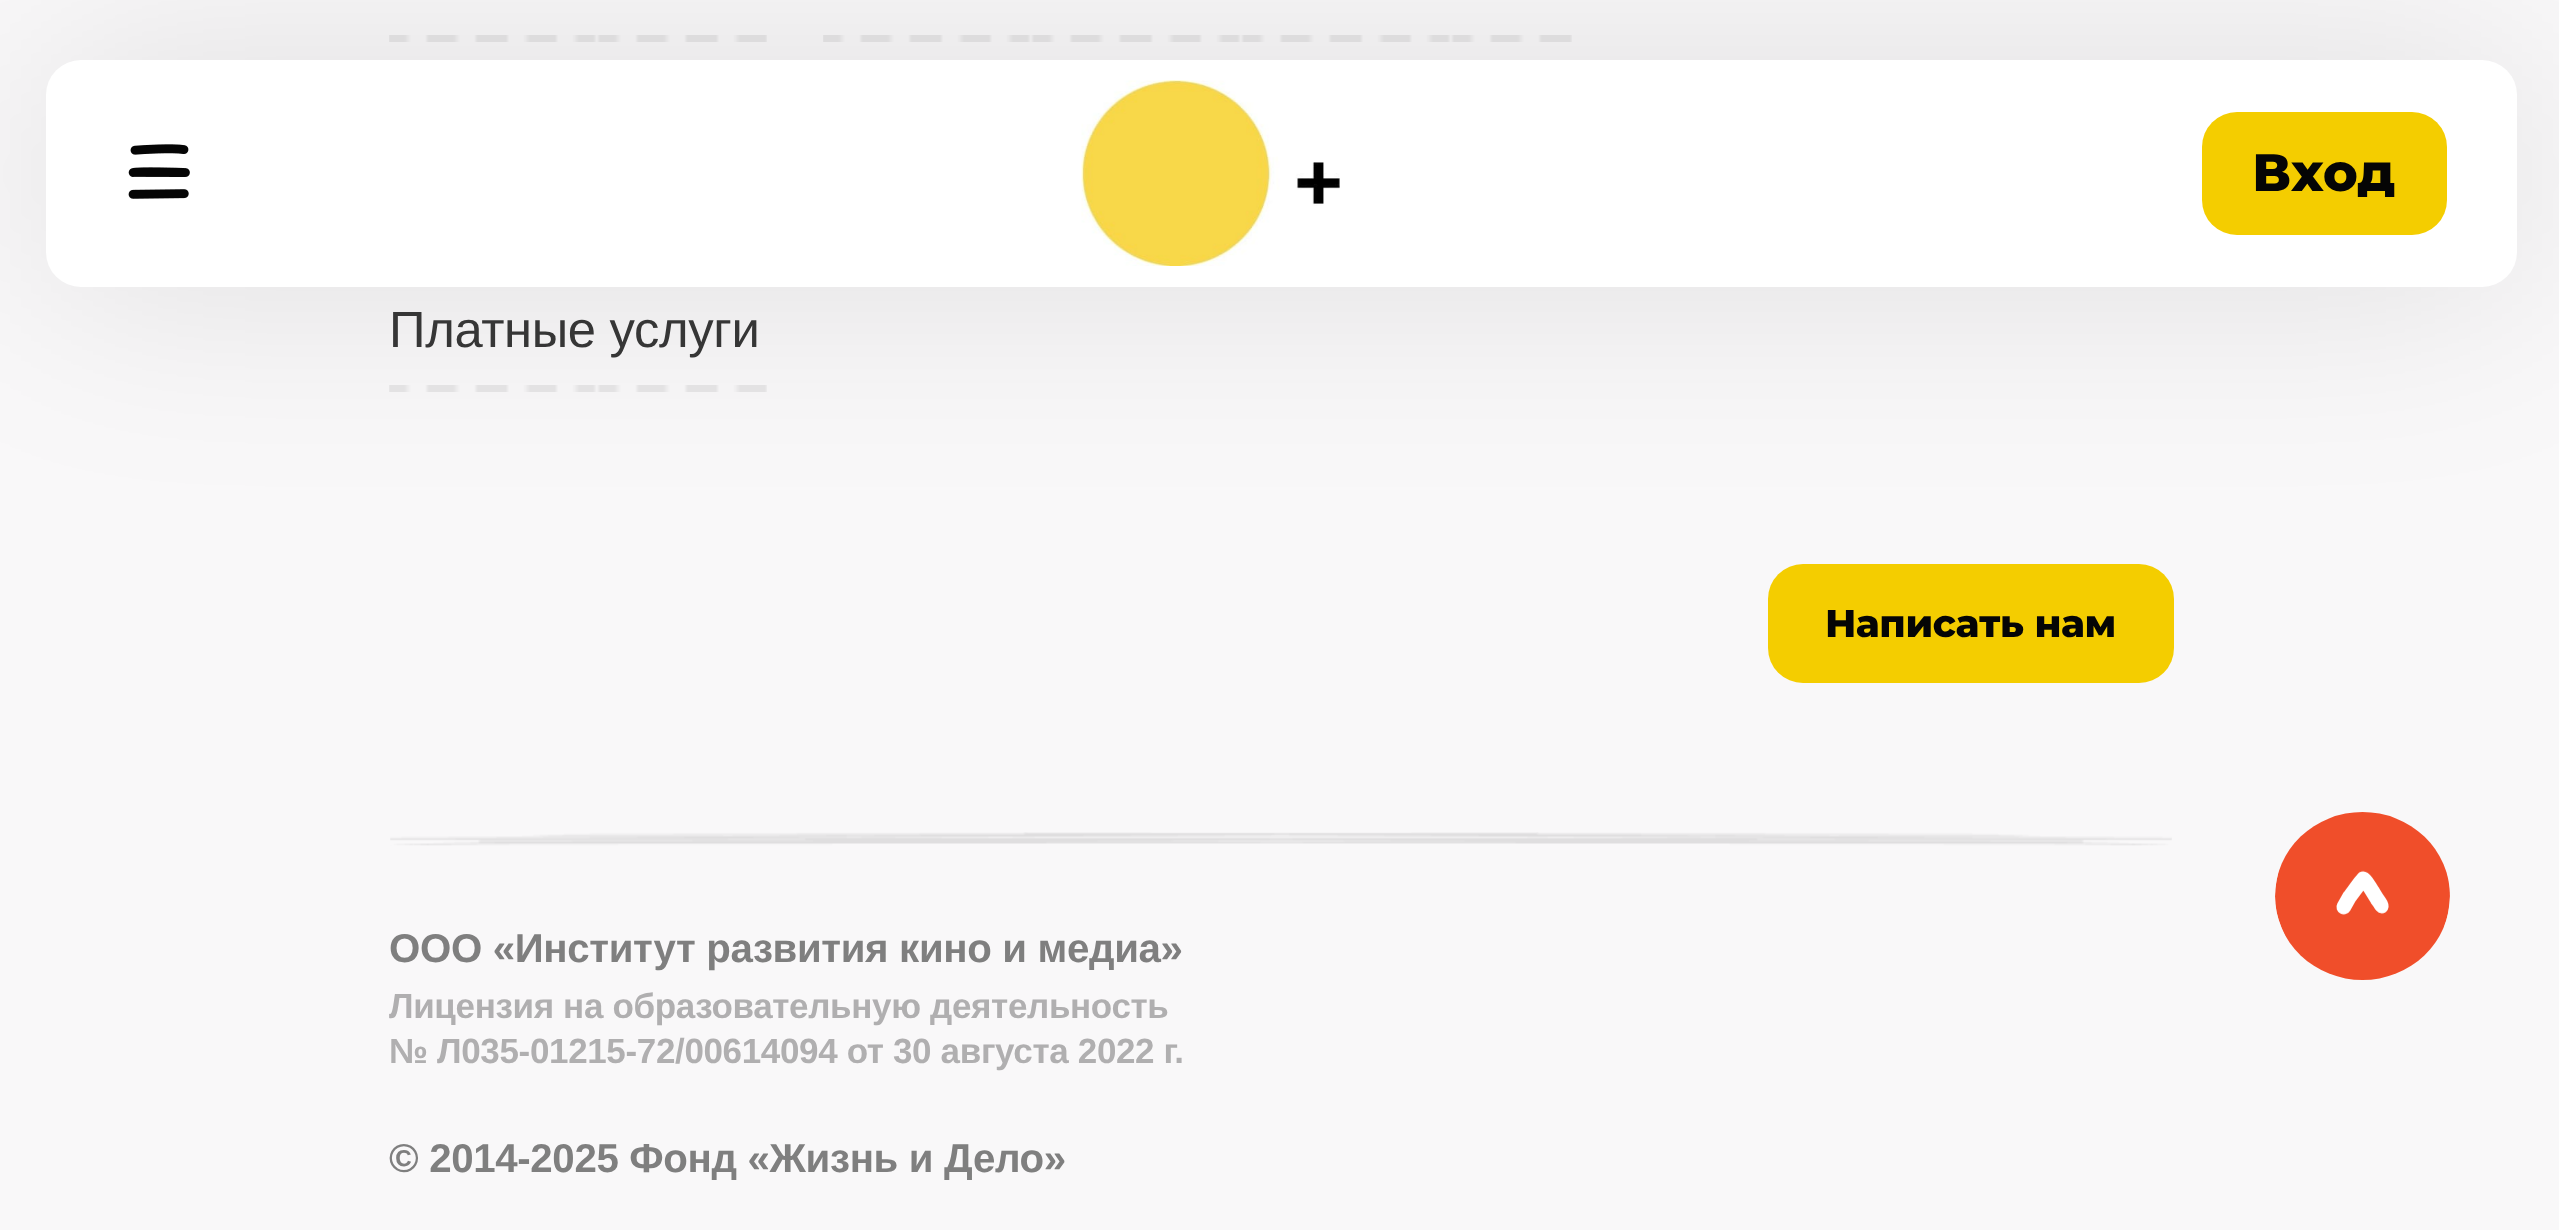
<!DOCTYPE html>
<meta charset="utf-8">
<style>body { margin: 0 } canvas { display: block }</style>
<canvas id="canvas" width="2559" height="1230"></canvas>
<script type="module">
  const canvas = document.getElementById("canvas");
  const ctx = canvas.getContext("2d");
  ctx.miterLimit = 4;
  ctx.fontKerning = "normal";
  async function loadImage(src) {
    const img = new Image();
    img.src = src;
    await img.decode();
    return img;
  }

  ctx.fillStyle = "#f9f8f9";
  ctx.fillRect(0, 0, 2559, 1230);
  ctx.drawImage(await loadImage("img3.png"), 389, 35, 378, 7);
  ctx.drawImage(await loadImage("img4.png"), 823, 35, 749, 7);
  ctx.drawImage(await loadImage("img3.png"), 389, 385, 378, 7);
  ctx.fillStyle = "#f4cd00";
  ctx.beginPath();
  ctx.roundRect(1768, 564, 406, 119, 35);
  ctx.fill();
  ctx.fillStyle = "rgba(5, 5, 5, 0.1)";
  ctx.filter = "blur(105px)";
  ctx.beginPath();
  ctx.roundRect(46, 60, 2471, 227, 35);
  ctx.fill();
  ctx.filter = "none";
  ctx.fillStyle = "#ffffff";
  ctx.beginPath();
  ctx.roundRect(46, 60, 2471, 227, 35);
  ctx.fill();
  ctx.drawImage(await loadImage("img1.png"), 128, 144, 62, 55);
  ctx.drawImage(await loadImage("img2.png"), 1081, 80, 259, 186);
  ctx.fillStyle = "#f4cd00";
  ctx.beginPath();
  ctx.roundRect(2202, 112, 245, 123, 35);
  ctx.fill();
  ctx.font = "800 52.5px Montserrat";
  ctx.fillStyle = "#050505";
  ctx.fillText("Вход", 2252, 191);
  ctx.letterSpacing = "-0.35px";
  ctx.font = "50.75px Liberation Sans";
  ctx.fillStyle = "#363636";
  ctx.fillText("Платные услуги", 389, 347);
  ctx.font = "800 38.5px Montserrat";
  ctx.fillStyle = "#050505";
  ctx.fillText("Написать нам", 1825, 637);
  ctx.drawImage(await loadImage("img5.png"), 390, 832, 1782, 14);
  ctx.font = "bold 40.25px Liberation Sans";
  ctx.fillStyle = "#7f7f7f";
  ctx.fillText("ООО «Институт развития кино и медиа»", 389, 962);
  ctx.font = "bold 35px Liberation Sans";
  ctx.fillStyle = "#b0afb0";
  ctx.fillText("Лицензия на образовательную деятельность", 389, 1018);
  ctx.fillText("№ Л035-01215-72/00614094 от 30 августа 2022 г.", 389, 1063);
  ctx.font = "bold 40.25px Liberation Sans";
  ctx.fillStyle = "#7f7f7f";
  ctx.fillText("© 2014-2025 Фонд «Жизнь и Дело»", 389, 1172);
  ctx.drawImage(await loadImage("img6.png"), 2275, 812, 175, 168);
</script>
